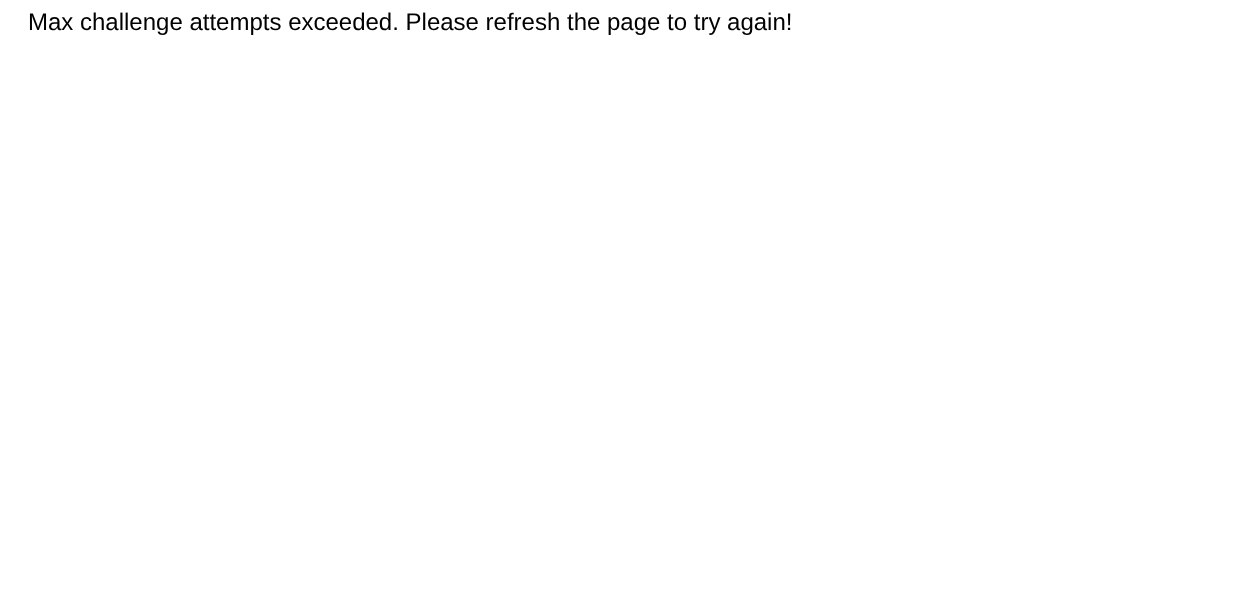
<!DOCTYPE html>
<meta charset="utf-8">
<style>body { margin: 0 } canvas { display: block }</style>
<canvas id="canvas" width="1255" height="591"></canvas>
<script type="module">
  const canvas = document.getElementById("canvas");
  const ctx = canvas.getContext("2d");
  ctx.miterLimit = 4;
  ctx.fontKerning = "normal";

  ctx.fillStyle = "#ffffff";
  ctx.fillRect(0, 0, 1255, 591);
  ctx.font = "24px Liberation Sans";
  ctx.fillStyle = "#000000";
  ctx.fillText("Max challenge attempts exceeded. Please refresh the page to try again!", 28, 30);
</script>
